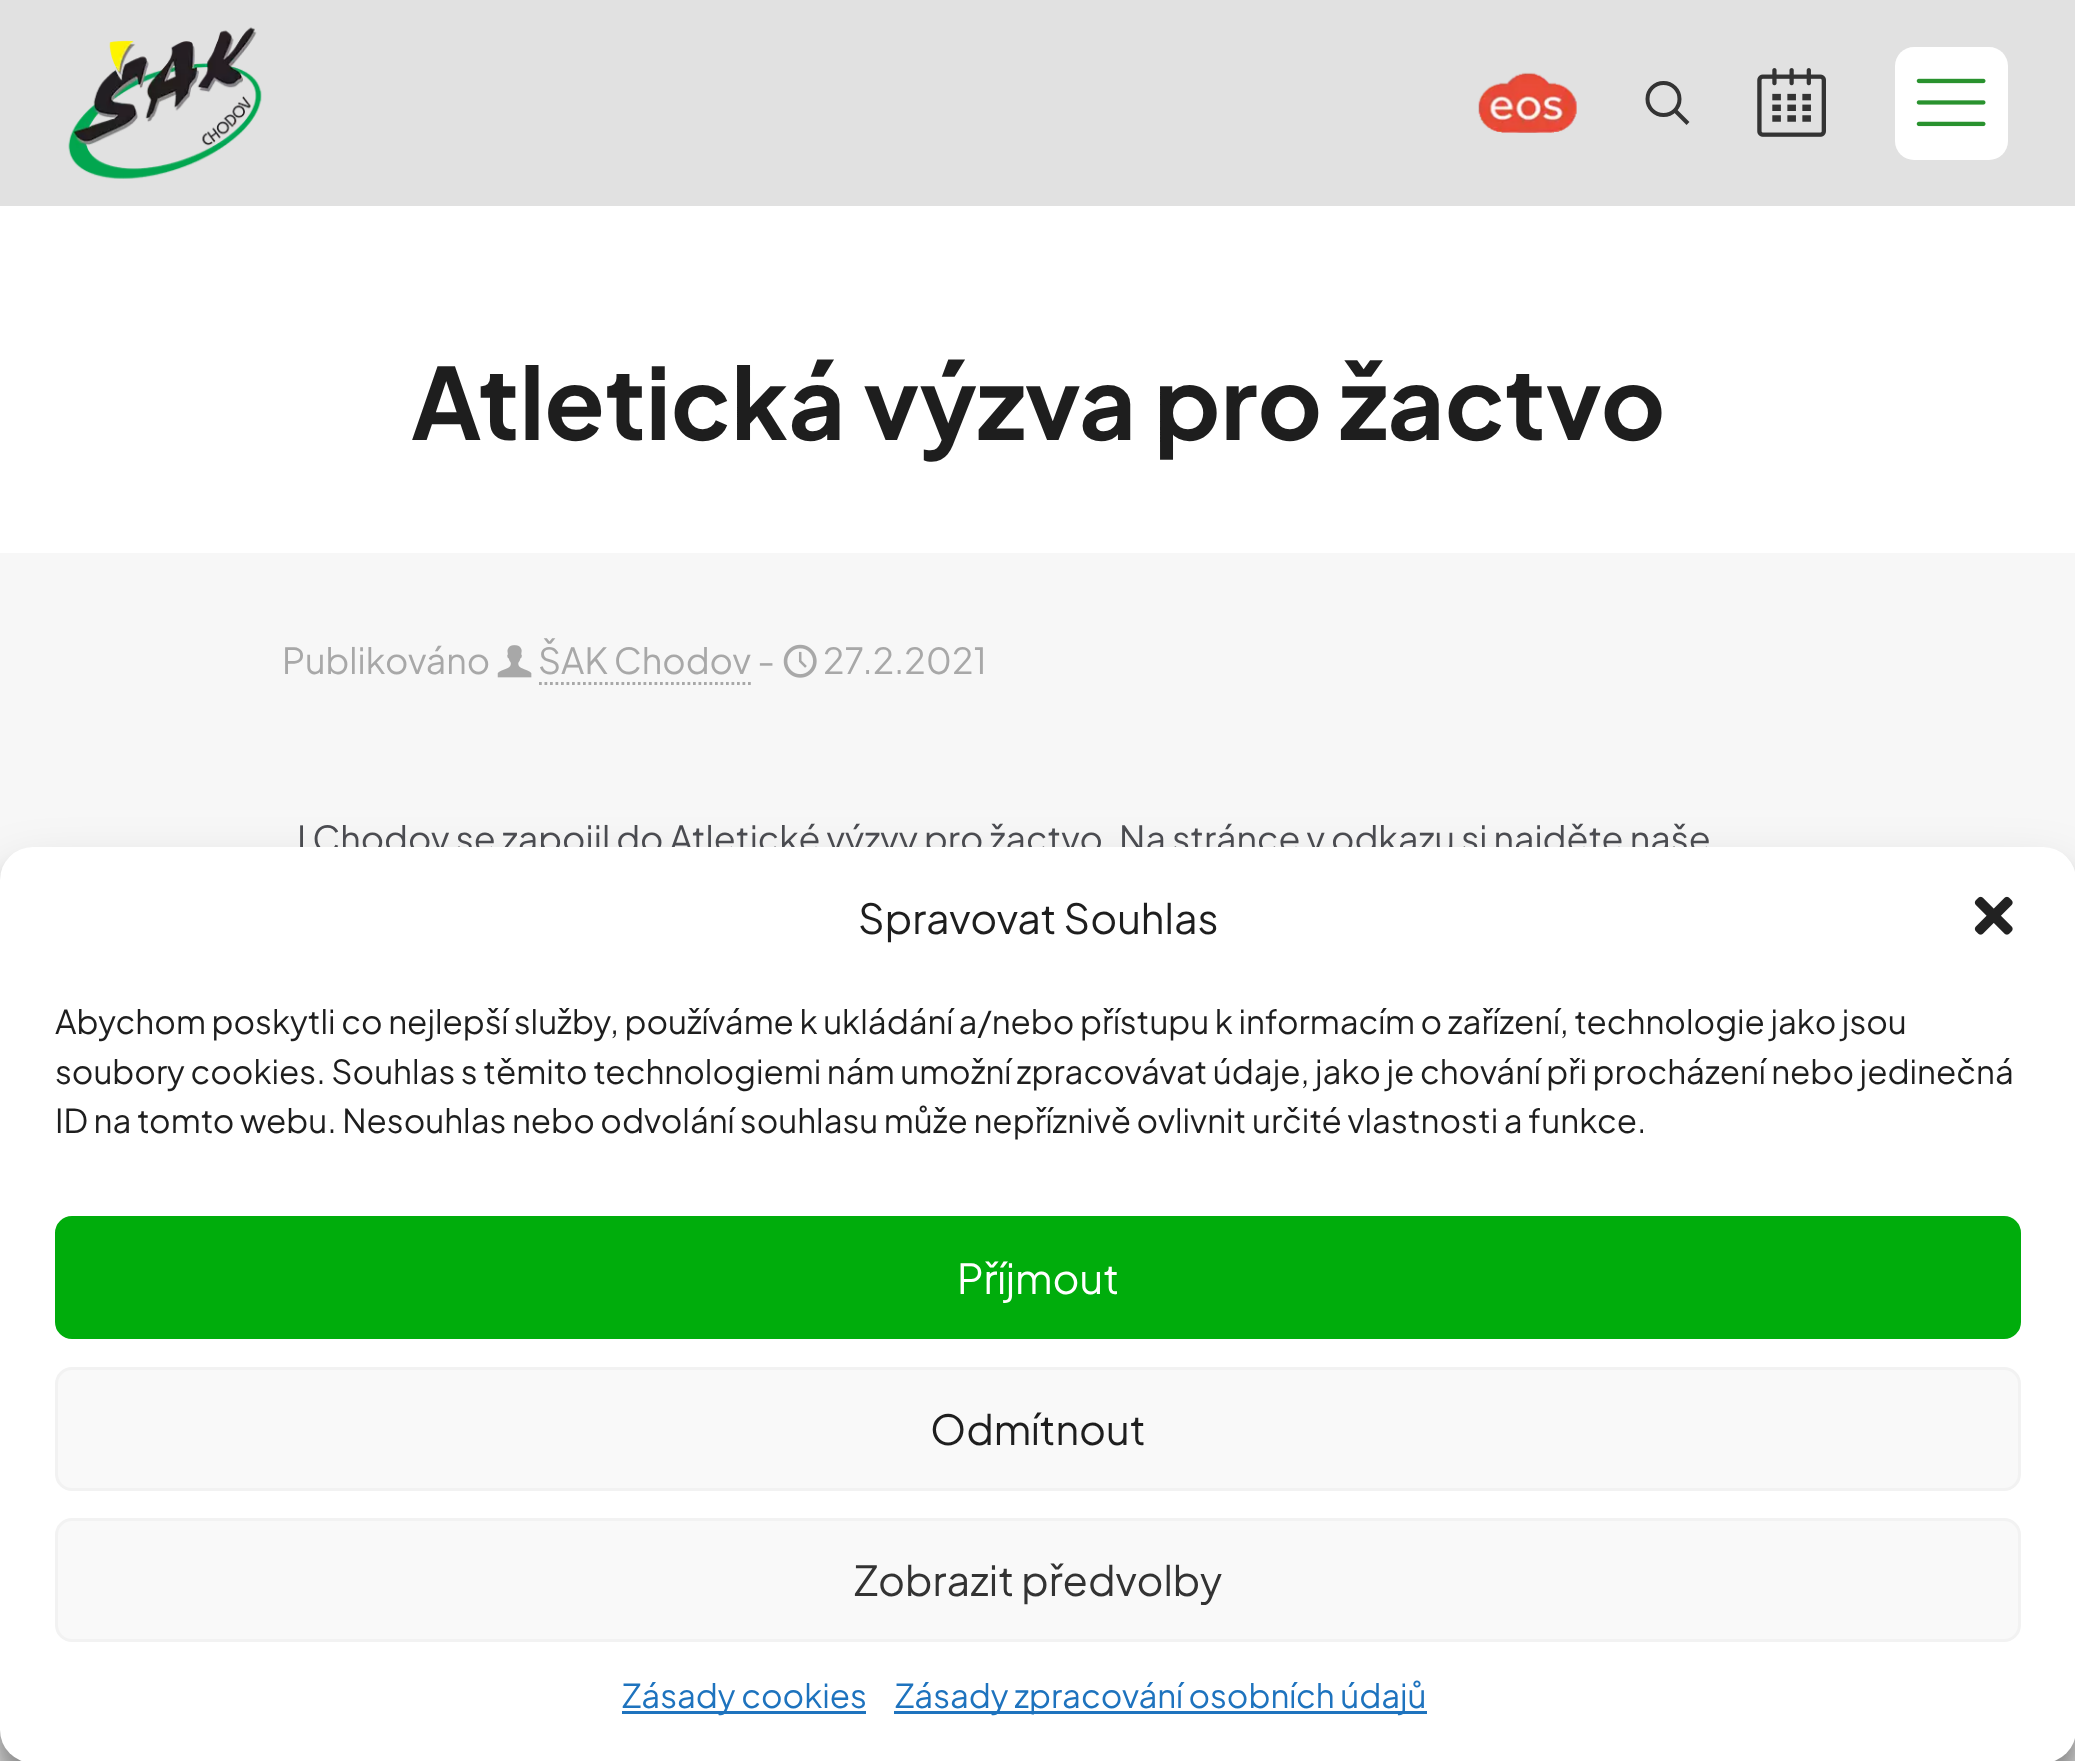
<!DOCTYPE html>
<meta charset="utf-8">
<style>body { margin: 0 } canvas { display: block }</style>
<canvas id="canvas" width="2075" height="1761"></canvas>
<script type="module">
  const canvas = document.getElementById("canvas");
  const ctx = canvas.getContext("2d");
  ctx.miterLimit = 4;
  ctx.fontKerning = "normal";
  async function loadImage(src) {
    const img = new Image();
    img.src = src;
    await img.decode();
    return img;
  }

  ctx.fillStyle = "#f7f7f7";
  ctx.fillRect(0, 0, 2075, 1761);
  ctx.fillStyle = "#e1e1e1";
  ctx.fillRect(0, 0, 2075, 206);
  ctx.drawImage(await loadImage("img1.png"), 68, 27, 194, 152);
  ctx.drawImage(await loadImage("img2.png"), 1478, 72, 99, 61);
  ctx.beginPath();
  ctx.arc(1663.5, 99, 16, 0, Math.PI * 2);
  ctx.strokeStyle = "#333333";
  ctx.lineWidth = 4;
  ctx.stroke();
  ctx.beginPath();
  ctx.moveTo(1674.5, 110);
  ctx.lineTo(1688, 123.5);
  ctx.stroke();
  ctx.drawImage(await loadImage("img3.png"), 1757, 68, 69, 69);
  ctx.fillStyle = "#ffffff";
  ctx.beginPath();
  ctx.roundRect(1895, 47, 113, 113, 19);
  ctx.fill();
  ctx.drawImage(await loadImage("img4.png"), 1916, 78, 70, 49);
  ctx.fillRect(0, 206, 2075, 347);
  ctx.font = "bold 99px Plus Jakarta Sans";
  ctx.fillStyle = "#1e1e1e";
  ctx.fillText("Atletická výzva pro žactvo", 411, 440);
  ctx.font = "35.75px Plus Jakarta Sans";
  ctx.fillStyle = "#a8a8a8";
  ctx.fillText("Publikováno", 282, 674);
  ctx.drawImage(await loadImage("img5.png"), 497, 645, 35, 33);
  ctx.fillText("ŠAK Chodov -", 538, 674);
  ctx.beginPath();
  ctx.moveTo(539, 683.5);
  ctx.lineTo(751, 683.5);
  ctx.strokeStyle = "#a8a8a8";
  ctx.lineWidth = 2.8;
  ctx.setLineDash([2.75, 2.75]);
  ctx.stroke();
  ctx.drawImage(await loadImage("img6.png"), 783, 644, 34, 34);
  ctx.fillText("27.2.2021", 823, 674);
  ctx.fillStyle = "#4c4d52";
  ctx.fillText("I Chodov se zapojil do Atletické výzvy pro žactvo. Na stránce v odkazu si najděte naše", 297, 852);
  ctx.fillStyle = "#d7d7d7";
  ctx.fillRect(0, 1730, 2075, 31);
  ctx.fillStyle = "rgba(0, 0, 0, 0.23)";
  ctx.filter = "blur(8px)";
  ctx.beginPath();
  ctx.roundRect(0, 864, 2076, 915, 33);
  ctx.fill();
  ctx.filter = "none";
  ctx.fillStyle = "rgba(0, 0, 0, 0.19)";
  ctx.filter = "blur(27.5px)";
  ctx.beginPath();
  ctx.roundRect(0, 875, 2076, 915, 33);
  ctx.fill();
  ctx.filter = "none";
  ctx.fillStyle = "#ffffff";
  ctx.beginPath();
  ctx.roundRect(0, 847, 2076, 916, 33);
  ctx.fill();
  ctx.font = "41.25px Plus Jakarta Sans";
  ctx.fillStyle = "#1e1e1e";
  ctx.fillText("Spravovat Souhlas", 858, 934);
  ctx.drawImage(await loadImage("img7.png"), 1974, 896, 39, 39);
  ctx.font = "33px Plus Jakarta Sans";
  ctx.fillText("Abychom poskytli co nejlepší služby, používáme k ukládání a/nebo přístupu k informacím o zařízení, technologie jako jsou", 55, 1034);
  ctx.fillText("soubory cookies. Souhlas s těmito technologiemi nám umožní zpracovávat údaje, jako je chování při procházení nebo jedinečná", 55, 1084);
  ctx.fillText("ID na tomto webu. Nesouhlas nebo odvolání souhlasu může nepříznivě ovlivnit určité vlastnosti a funkce.", 55, 1133);
  ctx.fillStyle = "#00ad0c";
  ctx.beginPath();
  ctx.roundRect(56.5, 1217.5, 1963, 120, 15.5);
  ctx.fill();
  ctx.strokeStyle = "#00ad0c";
  ctx.lineWidth = 3;
  ctx.setLineDash([]);
  ctx.stroke();
  ctx.font = "41.25px Plus Jakarta Sans";
  ctx.fillStyle = "#ffffff";
  ctx.fillText("Příjmout", 957, 1294);
  ctx.fillStyle = "#f9f9f9";
  ctx.beginPath();
  ctx.roundRect(56.5, 1368.5, 1963, 121, 15.5);
  ctx.fill();
  ctx.strokeStyle = "#f2f2f2";
  ctx.stroke();
  ctx.fillStyle = "#1e1e1e";
  ctx.fillText("Odmítnout", 930, 1445);
  ctx.fillStyle = "#f9f9f9";
  ctx.beginPath();
  ctx.roundRect(56.5, 1519.5, 1963, 121, 15.5);
  ctx.fill();
  ctx.stroke();
  ctx.fillStyle = "#333333";
  ctx.fillText("Zobrazit předvolby", 854, 1596);
  ctx.fillStyle = "#1e73be";
  ctx.fillRect(622, 1711, 244, 3);
  ctx.font = "33px Plus Jakarta Sans";
  ctx.fillText("Zásady cookies", 622, 1708);
  ctx.fillRect(894, 1711, 533, 3);
  ctx.fillText("Zásady zpracování osobních údajů", 895, 1708);
</script>
